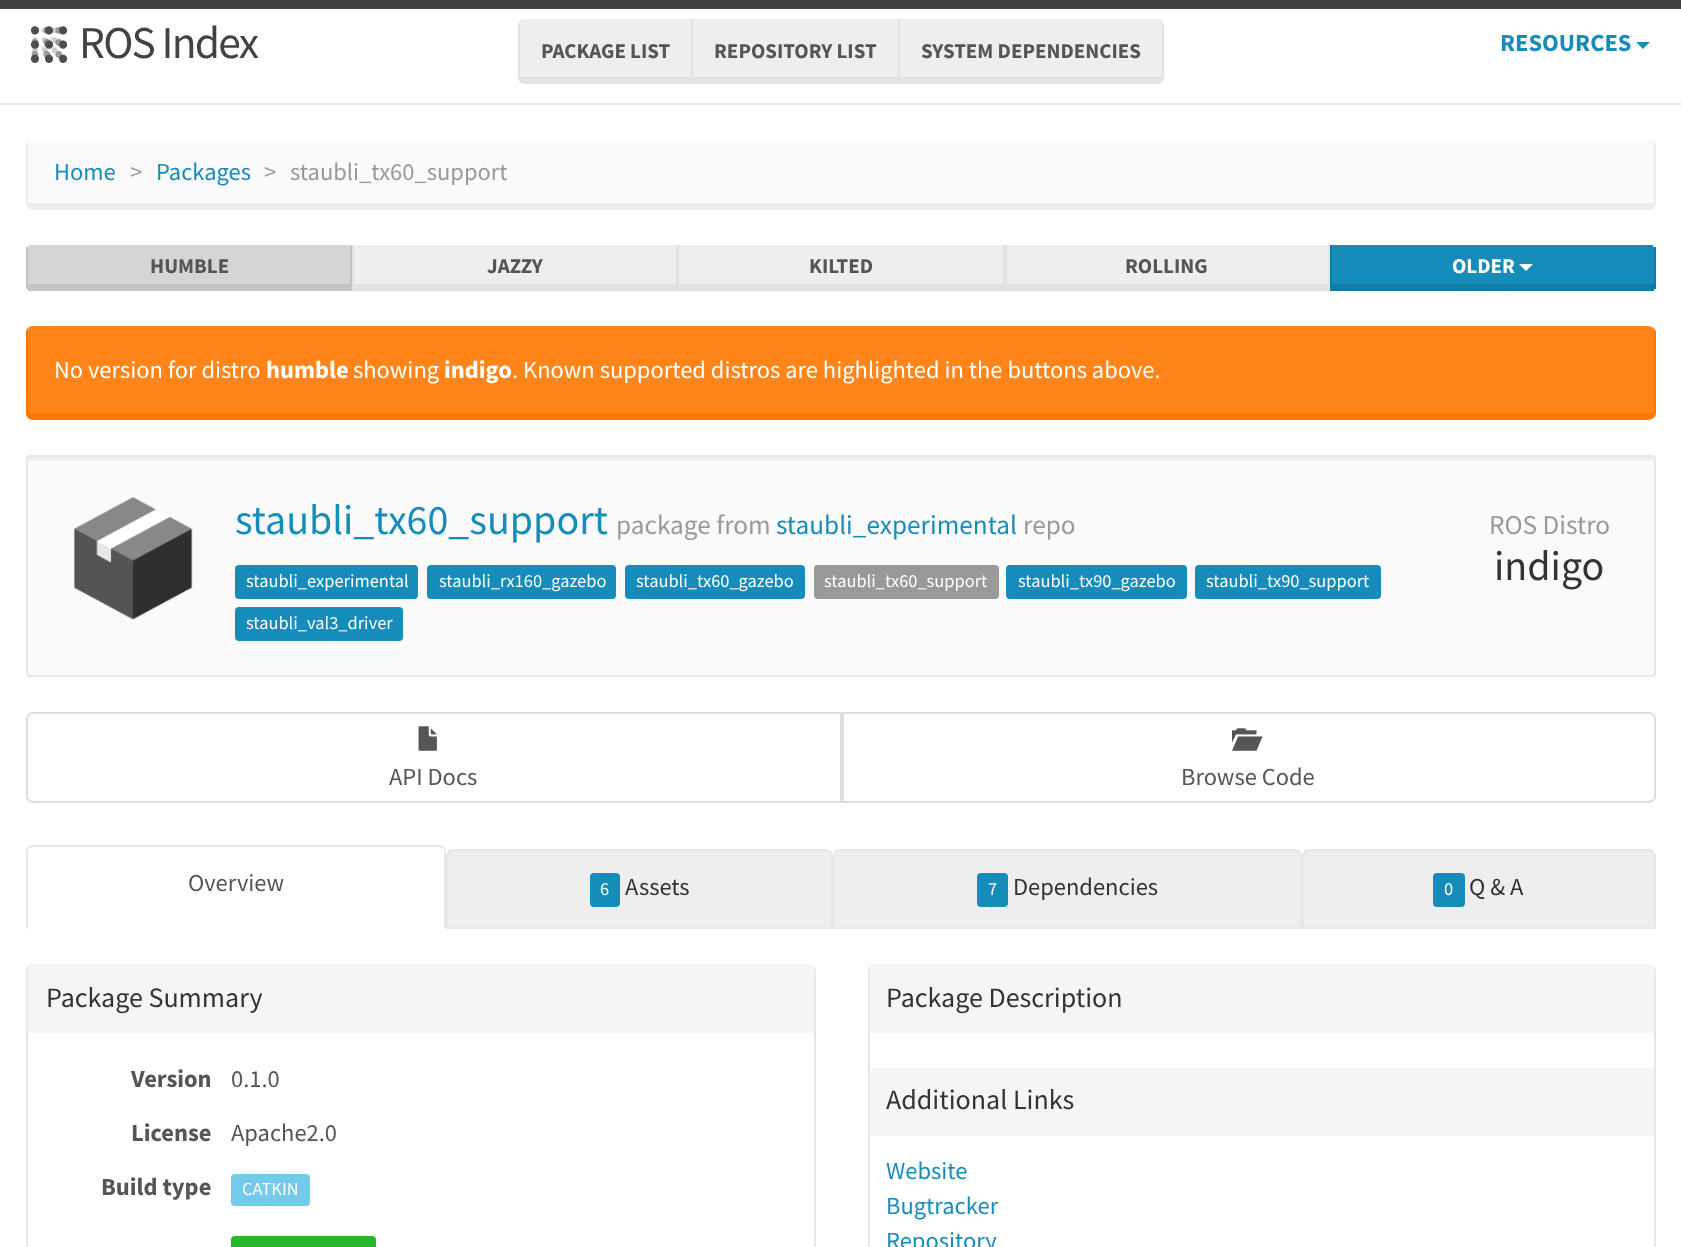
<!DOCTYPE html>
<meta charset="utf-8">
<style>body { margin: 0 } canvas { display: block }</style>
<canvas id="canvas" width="1681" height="1247"></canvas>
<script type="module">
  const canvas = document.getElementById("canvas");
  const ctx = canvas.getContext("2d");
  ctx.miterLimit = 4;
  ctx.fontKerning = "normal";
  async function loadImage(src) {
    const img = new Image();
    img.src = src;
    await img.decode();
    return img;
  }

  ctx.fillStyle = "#ffffff";
  ctx.fillRect(0, 0, 1681, 1247);
  ctx.fillStyle = "#424242";
  ctx.fillRect(0, 0, 1681, 9);
  ctx.fillStyle = "#e8e8e8";
  ctx.fillRect(0, 103, 1681, 2);
  ctx.drawImage(await loadImage("img1.png"), 30, 26, 38, 37);
  ctx.letterSpacing = "-1.75px";
  ctx.font = "45.5px Source Sans Pro";
  ctx.fillStyle = "#424242";
  ctx.fillText("ROS Index", 79, 58);
  ctx.fillStyle = "#eeeeee";
  ctx.beginPath();
  ctx.moveTo(525, 19);
  ctx.lineTo(691, 19);
  ctx.lineTo(691, 77);
  ctx.lineTo(520, 77);
  ctx.lineTo(520, 26);
  ctx.bezierCurveTo(520, 22, 522, 19, 525, 19);
  ctx.closePath();
  ctx.fill();
  ctx.fillStyle = "#e2e2e2";
  ctx.beginPath();
  ctx.moveTo(525, 19);
  ctx.lineTo(693, 19);
  ctx.lineTo(693, 84);
  ctx.lineTo(525, 84);
  ctx.bezierCurveTo(521, 84, 518, 81, 518, 77);
  ctx.lineTo(518, 26);
  ctx.bezierCurveTo(518, 22, 521, 19, 525, 19);
  ctx.closePath();
  ctx.moveTo(525, 19);
  ctx.lineTo(691, 19);
  ctx.lineTo(691, 77);
  ctx.lineTo(520, 77);
  ctx.lineTo(520, 26);
  ctx.bezierCurveTo(520, 22, 522, 19, 525, 19);
  ctx.closePath();
  ctx.fill("evenodd");
  ctx.letterSpacing = "0px";
  ctx.font = "bold 21px Source Sans Pro";
  ctx.fillStyle = "#555555";
  ctx.fillText("PACKAGE LIST", 541, 58);
  ctx.fillStyle = "#eeeeee";
  ctx.fillRect(693, 19, 205, 58);
  ctx.fillStyle = "#e2e2e2";
  ctx.fillRect(691, 77, 209, 7);
  ctx.fillStyle = "#555555";
  ctx.fillText("REPOSITORY LIST", 714, 58);
  ctx.fillStyle = "#eeeeee";
  ctx.beginPath();
  ctx.moveTo(900, 19);
  ctx.lineTo(1157, 19);
  ctx.bezierCurveTo(1160, 19, 1162, 22, 1162, 26);
  ctx.lineTo(1162, 77);
  ctx.lineTo(900, 77);
  ctx.closePath();
  ctx.fill();
  ctx.fillStyle = "#e2e2e2";
  ctx.beginPath();
  ctx.moveTo(898, 19);
  ctx.lineTo(1157, 19);
  ctx.bezierCurveTo(1161, 19, 1164, 22, 1164, 26);
  ctx.lineTo(1164, 77);
  ctx.bezierCurveTo(1164, 81, 1161, 84, 1157, 84);
  ctx.lineTo(898, 84);
  ctx.closePath();
  ctx.moveTo(900, 19);
  ctx.lineTo(1157, 19);
  ctx.bezierCurveTo(1160, 19, 1162, 22, 1162, 26);
  ctx.lineTo(1162, 77);
  ctx.lineTo(900, 77);
  ctx.closePath();
  ctx.fill("evenodd");
  ctx.fillStyle = "#555555";
  ctx.fillText("SYSTEM DEPENDENCIES", 921, 58);
  ctx.font = "bold 24.5px Source Sans Pro";
  ctx.fillStyle = "#158cba";
  ctx.fillText("RESOURCES", 1500, 51);
  ctx.beginPath();
  ctx.moveTo(1636, 42);
  ctx.lineTo(1650, 42);
  ctx.lineTo(1643, 49);
  ctx.closePath();
  ctx.fill();
  ctx.fillStyle = "#fafafa";
  ctx.beginPath();
  ctx.moveTo(33, 140);
  ctx.lineTo(1648, 140);
  ctx.bezierCurveTo(1651, 140, 1654, 143, 1654, 147);
  ctx.lineTo(1654, 203);
  ctx.lineTo(28, 203);
  ctx.lineTo(28, 147);
  ctx.bezierCurveTo(28, 143, 30, 140, 33, 140);
  ctx.closePath();
  ctx.fill();
  ctx.fillStyle = "#ededed";
  ctx.beginPath();
  ctx.moveTo(33, 140);
  ctx.lineTo(1648, 140);
  ctx.bezierCurveTo(1652, 140, 1656, 143, 1656, 147);
  ctx.lineTo(1656, 203);
  ctx.bezierCurveTo(1656, 207, 1652, 210, 1648, 210);
  ctx.lineTo(33, 210);
  ctx.bezierCurveTo(29, 210, 26, 207, 26, 203);
  ctx.lineTo(26, 147);
  ctx.bezierCurveTo(26, 143, 29, 140, 33, 140);
  ctx.closePath();
  ctx.moveTo(33, 140);
  ctx.lineTo(1648, 140);
  ctx.bezierCurveTo(1651, 140, 1654, 143, 1654, 147);
  ctx.lineTo(1654, 203);
  ctx.lineTo(28, 203);
  ctx.lineTo(28, 147);
  ctx.bezierCurveTo(28, 143, 30, 140, 33, 140);
  ctx.closePath();
  ctx.fill("evenodd");
  ctx.font = "24.5px Source Sans Pro";
  ctx.fillStyle = "#158cba";
  ctx.fillText("Home", 54, 180);
  ctx.fillStyle = "#999999";
  ctx.fillText(">", 130, 180);
  ctx.fillStyle = "#158cba";
  ctx.fillText("Packages", 156, 180);
  ctx.fillStyle = "#999999";
  ctx.fillText(">", 264, 180);
  ctx.fillText("staubli_tx60_support", 290, 180);
  ctx.fillStyle = "#d5d5d5";
  ctx.beginPath();
  ctx.moveTo(30, 245);
  ctx.lineTo(350, 245);
  ctx.lineTo(350, 284);
  ctx.lineTo(28, 284);
  ctx.lineTo(28, 248);
  ctx.bezierCurveTo(28, 247, 29, 245, 30, 245);
  ctx.closePath();
  ctx.fill();
  ctx.fillStyle = "#c3c3c3";
  ctx.fillRect(350, 245, 2, 46);
  ctx.fillRect(28, 284, 324, 7);
  ctx.fillRect(26, 247, 2, 42);
  ctx.font = "bold 21px Source Sans Pro";
  ctx.fillStyle = "#555555";
  ctx.fillText("HUMBLE", 150, 273);
  ctx.fillStyle = "#eeeeee";
  ctx.fillRect(354, 245, 322, 39);
  ctx.fillStyle = "#e2e2e2";
  ctx.fillRect(676, 245, 1, 46);
  ctx.fillRect(352, 284, 325, 7);
  ctx.fillRect(352, 245, 2, 46);
  ctx.fillStyle = "#555555";
  ctx.fillText("JAZZY", 487, 273);
  ctx.fillStyle = "#eeeeee";
  ctx.fillRect(679, 245, 324, 39);
  ctx.fillStyle = "#e2e2e2";
  ctx.fillRect(1003, 245, 2, 46);
  ctx.fillRect(677, 284, 328, 7);
  ctx.fillRect(677, 245, 2, 46);
  ctx.fillStyle = "#555555";
  ctx.fillText("KILTED", 809, 273);
  ctx.fillStyle = "#eeeeee";
  ctx.fillRect(1007, 245, 321, 39);
  ctx.fillStyle = "#e2e2e2";
  ctx.fillRect(1328, 245, 2, 46);
  ctx.fillRect(1005, 284, 325, 7);
  ctx.fillRect(1005, 245, 2, 46);
  ctx.fillStyle = "#555555";
  ctx.fillText("ROLLING", 1125, 273);
  ctx.fillStyle = "#158cba";
  ctx.beginPath();
  ctx.moveTo(1332, 245);
  ctx.lineTo(1652, 245);
  ctx.bezierCurveTo(1653, 245, 1654, 247, 1654, 248);
  ctx.lineTo(1654, 284);
  ctx.lineTo(1332, 284);
  ctx.closePath();
  ctx.fill();
  ctx.fillStyle = "#127ba3";
  ctx.fillRect(1654, 247, 2, 42);
  ctx.fillRect(1330, 284, 324, 7);
  ctx.fillRect(1330, 245, 2, 46);
  ctx.fillStyle = "#ffffff";
  ctx.fillText("OLDER", 1452, 273);
  ctx.beginPath();
  ctx.moveTo(1519, 264);
  ctx.lineTo(1533, 264);
  ctx.lineTo(1526, 271);
  ctx.closePath();
  ctx.fill();
  ctx.fillStyle = "#ff851b";
  ctx.beginPath();
  ctx.moveTo(33, 326);
  ctx.lineTo(1648, 326);
  ctx.bezierCurveTo(1651, 326, 1654, 329, 1654, 332);
  ctx.lineTo(1654, 413);
  ctx.lineTo(28, 413);
  ctx.lineTo(28, 332);
  ctx.bezierCurveTo(28, 329, 30, 326, 33, 326);
  ctx.closePath();
  ctx.fill();
  ctx.fillStyle = "#ff7701";
  ctx.beginPath();
  ctx.moveTo(33, 326);
  ctx.lineTo(1648, 326);
  ctx.bezierCurveTo(1652, 326, 1656, 329, 1656, 332);
  ctx.lineTo(1656, 413);
  ctx.bezierCurveTo(1656, 417, 1652, 420, 1648, 420);
  ctx.lineTo(33, 420);
  ctx.bezierCurveTo(29, 420, 26, 417, 26, 413);
  ctx.lineTo(26, 332);
  ctx.bezierCurveTo(26, 329, 29, 326, 33, 326);
  ctx.closePath();
  ctx.moveTo(33, 326);
  ctx.lineTo(1648, 326);
  ctx.bezierCurveTo(1651, 326, 1654, 329, 1654, 332);
  ctx.lineTo(1654, 413);
  ctx.lineTo(28, 413);
  ctx.lineTo(28, 332);
  ctx.bezierCurveTo(28, 329, 30, 326, 33, 326);
  ctx.closePath();
  ctx.fill("evenodd");
  ctx.font = "24.5px Source Sans Pro";
  ctx.fillStyle = "#ffffff";
  ctx.fillText("No version for distro", 54, 378);
  ctx.font = "bold 24.5px Source Sans Pro";
  ctx.fillText("humble", 266, 378);
  ctx.font = "24.5px Source Sans Pro";
  ctx.fillText("showing", 353, 378);
  ctx.font = "bold 24.5px Source Sans Pro";
  ctx.fillText("indigo", 444, 378);
  ctx.font = "24.5px Source Sans Pro";
  ctx.fillText(". Known supported distros are highlighted in the buttons above.", 512, 378);
  ctx.fillStyle = "#fafafa";
  ctx.beginPath();
  ctx.roundRect(26, 455, 1630, 222, 4);
  ctx.fill();
  ctx.fillStyle = "#eeeeee";
  ctx.beginPath();
  ctx.moveTo(30, 460);
  ctx.lineTo(1652, 460);
  ctx.bezierCurveTo(1653, 460, 1654, 461, 1654, 462);
  ctx.lineTo(1654, 458);
  ctx.lineTo(1652, 457);
  ctx.lineTo(30, 457);
  ctx.lineTo(28, 458);
  ctx.lineTo(28, 462);
  ctx.bezierCurveTo(28, 461, 29, 460, 30, 460);
  ctx.closePath();
  ctx.fill();
  ctx.beginPath();
  ctx.roundRect(27, 456, 1628, 220, 3);
  ctx.strokeStyle = "#e7e7e7";
  ctx.lineWidth = 2;
  ctx.stroke();
  ctx.drawImage(await loadImage("img2.png"), 73, 497, 120, 123);
  ctx.font = "42px Source Sans Pro";
  ctx.fillStyle = "#158cba";
  ctx.fillText("staubli_tx60_support", 235, 534);
  ctx.font = "27.25px Source Sans Pro";
  ctx.fillStyle = "#999999";
  ctx.fillText("package from", 616, 534);
  ctx.fillStyle = "#158cba";
  ctx.fillText("staubli_experimental", 776, 534);
  ctx.fillStyle = "#999999";
  ctx.fillText("repo", 1023, 534);
  ctx.fillStyle = "#158cba";
  ctx.beginPath();
  ctx.roundRect(235, 565, 183, 34, 4);
  ctx.fill();
  ctx.font = "18.4px Source Sans Pro";
  ctx.fillStyle = "#ffffff";
  ctx.fillText("staubli_experimental", 246, 587);
  ctx.fillStyle = "#158cba";
  ctx.beginPath();
  ctx.roundRect(427, 565, 189, 34, 4);
  ctx.fill();
  ctx.fillStyle = "#ffffff";
  ctx.fillText("staubli_rx160_gazebo", 439, 587);
  ctx.fillStyle = "#158cba";
  ctx.beginPath();
  ctx.roundRect(625, 565, 180, 34, 4);
  ctx.fill();
  ctx.fillStyle = "#ffffff";
  ctx.fillText("staubli_tx60_gazebo", 636, 587);
  ctx.fillStyle = "#999999";
  ctx.beginPath();
  ctx.roundRect(814, 565, 185, 34, 4);
  ctx.fill();
  ctx.fillStyle = "#ffffff";
  ctx.fillText("staubli_tx60_support", 824, 587);
  ctx.fillStyle = "#158cba";
  ctx.beginPath();
  ctx.roundRect(1006, 565, 181, 34, 4);
  ctx.fill();
  ctx.fillStyle = "#ffffff";
  ctx.fillText("staubli_tx90_gazebo", 1018, 587);
  ctx.fillStyle = "#158cba";
  ctx.beginPath();
  ctx.roundRect(1195, 565, 186, 34, 4);
  ctx.fill();
  ctx.fillStyle = "#ffffff";
  ctx.fillText("staubli_tx90_support", 1206, 587);
  ctx.fillStyle = "#158cba";
  ctx.beginPath();
  ctx.roundRect(235, 607, 168, 34, 4);
  ctx.fill();
  ctx.fillStyle = "#ffffff";
  ctx.fillText("staubli_val3_driver", 246, 629);
  ctx.font = "27.25px Source Sans Pro";
  ctx.fillStyle = "#999999";
  ctx.fillText("ROS Distro", 1489, 534);
  ctx.font = "42px Source Sans Pro";
  ctx.fillStyle = "#333333";
  ctx.fillText("indigo", 1494, 580);
  ctx.beginPath();
  ctx.roundRect(27, 713, 814, 89, [6, 0, 0, 6]);
  ctx.strokeStyle = "#dddddd";
  ctx.stroke();
  ctx.drawImage(await loadImage("img3.png"), 418, 726, 19, 25);
  ctx.font = "24.5px Source Sans Pro";
  ctx.fillStyle = "#555555";
  ctx.fillText("API Docs", 389, 785);
  ctx.beginPath();
  ctx.roundRect(843, 713, 812, 89, [0, 6, 6, 0]);
  ctx.stroke();
  ctx.drawImage(await loadImage("img4.png"), 1232, 728, 31, 23);
  ctx.fillText("Browse Code", 1181, 785);
  ctx.fillStyle = "#e7e7e7";
  ctx.beginPath();
  ctx.moveTo(33, 847);
  ctx.bezierCurveTo(32, 847, 30, 848, 29, 848);
  ctx.lineTo(28, 847);
  ctx.lineTo(31, 845);
  ctx.lineTo(441, 845);
  ctx.lineTo(444, 847);
  ctx.lineTo(443, 849);
  ctx.bezierCurveTo(442, 848, 441, 847, 439, 847);
  ctx.closePath();
  ctx.fill();
  ctx.beginPath();
  ctx.moveTo(444, 847);
  ctx.bezierCurveTo(445, 848, 446, 850, 446, 852);
  ctx.lineTo(446, 929);
  ctx.lineTo(444, 927);
  ctx.lineTo(444, 852);
  ctx.bezierCurveTo(444, 851, 444, 849, 443, 849);
  ctx.closePath();
  ctx.fill();
  ctx.fillStyle = "#ffffff";
  ctx.beginPath();
  ctx.moveTo(446, 929);
  ctx.lineTo(444, 927);
  ctx.lineTo(444, 928);
  ctx.lineTo(28, 928);
  ctx.lineTo(26, 929);
  ctx.closePath();
  ctx.fill();
  ctx.fillStyle = "#e7e7e7";
  ctx.beginPath();
  ctx.moveTo(26, 850);
  ctx.lineTo(28, 847);
  ctx.lineTo(29, 848);
  ctx.lineTo(28, 851);
  ctx.lineTo(28, 928);
  ctx.lineTo(26, 929);
  ctx.closePath();
  ctx.fill();
  ctx.fillStyle = "#555555";
  ctx.fillText("Overview", 188, 891);
  ctx.fillStyle = "#eeeeee";
  ctx.beginPath();
  ctx.roundRect(447, 850, 385, 78, [6, 6, 0, 0]);
  ctx.fill();
  ctx.strokeStyle = "#e7e7e7";
  ctx.stroke();
  ctx.fillStyle = "#158cba";
  ctx.beginPath();
  ctx.roundRect(590, 873, 30, 34, 4);
  ctx.fill();
  ctx.font = "18.4px Source Sans Pro";
  ctx.fillStyle = "#ffffff";
  ctx.fillText("6", 600, 895);
  ctx.font = "24.5px Source Sans Pro";
  ctx.fillStyle = "#333333";
  ctx.fillText("Assets", 625, 895);
  ctx.fillStyle = "#eeeeee";
  ctx.beginPath();
  ctx.roundRect(834, 850, 467, 78, [6, 6, 0, 0]);
  ctx.fill();
  ctx.stroke();
  ctx.fillStyle = "#158cba";
  ctx.beginPath();
  ctx.roundRect(977, 873, 31, 34, 4);
  ctx.fill();
  ctx.font = "18.4px Source Sans Pro";
  ctx.fillStyle = "#ffffff";
  ctx.fillText("7", 988, 895);
  ctx.font = "24.5px Source Sans Pro";
  ctx.fillStyle = "#333333";
  ctx.fillText("Dependencies", 1013, 895);
  ctx.fillStyle = "#eeeeee";
  ctx.beginPath();
  ctx.roundRect(1303, 850, 352, 78, [6, 6, 0, 0]);
  ctx.fill();
  ctx.stroke();
  ctx.fillStyle = "#158cba";
  ctx.beginPath();
  ctx.roundRect(1433, 873, 32, 34, 4);
  ctx.fill();
  ctx.font = "18.4px Source Sans Pro";
  ctx.fillStyle = "#ffffff";
  ctx.fillText("0", 1444, 895);
  ctx.font = "24.5px Source Sans Pro";
  ctx.fillStyle = "#333333";
  ctx.fillText("Q & A", 1469, 895);
  ctx.fillStyle = "#e7e7e7";
  ctx.beginPath();
  ctx.moveTo(33, 964);
  ctx.lineTo(808, 964);
  ctx.bezierCurveTo(812, 964, 816, 967, 816, 971);
  ctx.lineTo(816, 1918);
  ctx.bezierCurveTo(816, 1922, 812, 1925, 808, 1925);
  ctx.lineTo(33, 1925);
  ctx.bezierCurveTo(29, 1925, 26, 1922, 26, 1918);
  ctx.lineTo(26, 971);
  ctx.bezierCurveTo(26, 967, 29, 964, 33, 964);
  ctx.closePath();
  ctx.moveTo(33, 964);
  ctx.lineTo(808, 964);
  ctx.bezierCurveTo(811, 964, 814, 967, 814, 971);
  ctx.lineTo(814, 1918);
  ctx.lineTo(28, 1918);
  ctx.lineTo(28, 971);
  ctx.bezierCurveTo(28, 967, 30, 964, 33, 964);
  ctx.closePath();
  ctx.fill("evenodd");
  ctx.fillStyle = "#f5f5f5";
  ctx.beginPath();
  ctx.roundRect(28, 964, 786, 69, [5, 5, 0, 0]);
  ctx.fill();
  ctx.font = "28px Source Sans Pro";
  ctx.fillStyle = "#333333";
  ctx.fillText("Package Summary", 46, 1007);
  ctx.font = "bold 24.5px Source Sans Pro";
  ctx.fillStyle = "#555555";
  ctx.fillText("Version", 131, 1087);
  ctx.font = "24.5px Source Sans Pro";
  ctx.fillText("0.1.0", 231, 1087);
  ctx.font = "bold 24.5px Source Sans Pro";
  ctx.fillText("License", 131, 1141);
  ctx.font = "24.5px Source Sans Pro";
  ctx.fillText("Apache2.0", 231, 1141);
  ctx.font = "bold 24.5px Source Sans Pro";
  ctx.fillText("Build type", 101, 1195);
  ctx.fillStyle = "#75caeb";
  ctx.beginPath();
  ctx.roundRect(231, 1174, 79, 32, 4);
  ctx.fill();
  ctx.font = "18.4px Source Sans Pro";
  ctx.fillStyle = "#ffffff";
  ctx.fillText("CATKIN", 242, 1195);
  ctx.fillStyle = "#28b62c";
  ctx.beginPath();
  ctx.roundRect(231, 1236, 145, 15, 4);
  ctx.fill();
  ctx.fillStyle = "#e7e7e7";
  ctx.beginPath();
  ctx.moveTo(875, 964);
  ctx.lineTo(1648, 964);
  ctx.bezierCurveTo(1652, 964, 1656, 967, 1656, 971);
  ctx.lineTo(1656, 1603);
  ctx.bezierCurveTo(1656, 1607, 1652, 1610, 1648, 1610);
  ctx.lineTo(875, 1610);
  ctx.bezierCurveTo(871, 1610, 868, 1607, 868, 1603);
  ctx.lineTo(868, 971);
  ctx.bezierCurveTo(868, 967, 871, 964, 875, 964);
  ctx.closePath();
  ctx.moveTo(875, 964);
  ctx.lineTo(1648, 964);
  ctx.bezierCurveTo(1651, 964, 1654, 967, 1654, 971);
  ctx.lineTo(1654, 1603);
  ctx.lineTo(870, 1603);
  ctx.lineTo(870, 971);
  ctx.bezierCurveTo(870, 967, 872, 964, 875, 964);
  ctx.closePath();
  ctx.fill("evenodd");
  ctx.fillStyle = "#f5f5f5";
  ctx.beginPath();
  ctx.roundRect(870, 964, 784, 69, [5, 5, 0, 0]);
  ctx.fill();
  ctx.font = "28px Source Sans Pro";
  ctx.fillStyle = "#333333";
  ctx.fillText("Package Description", 886, 1007);
  ctx.fillStyle = "#f5f5f5";
  ctx.beginPath();
  ctx.roundRect(870, 1068, 784, 68, [5, 5, 0, 0]);
  ctx.fill();
  ctx.fillStyle = "#333333";
  ctx.fillText("Additional Links", 886, 1109);
  ctx.font = "24.5px Source Sans Pro";
  ctx.fillStyle = "#158cba";
  ctx.fillText("Website", 886, 1179);
  ctx.fillText("Bugtracker", 886, 1214);
  ctx.fillText("Repository", 886, 1249);
</script>
